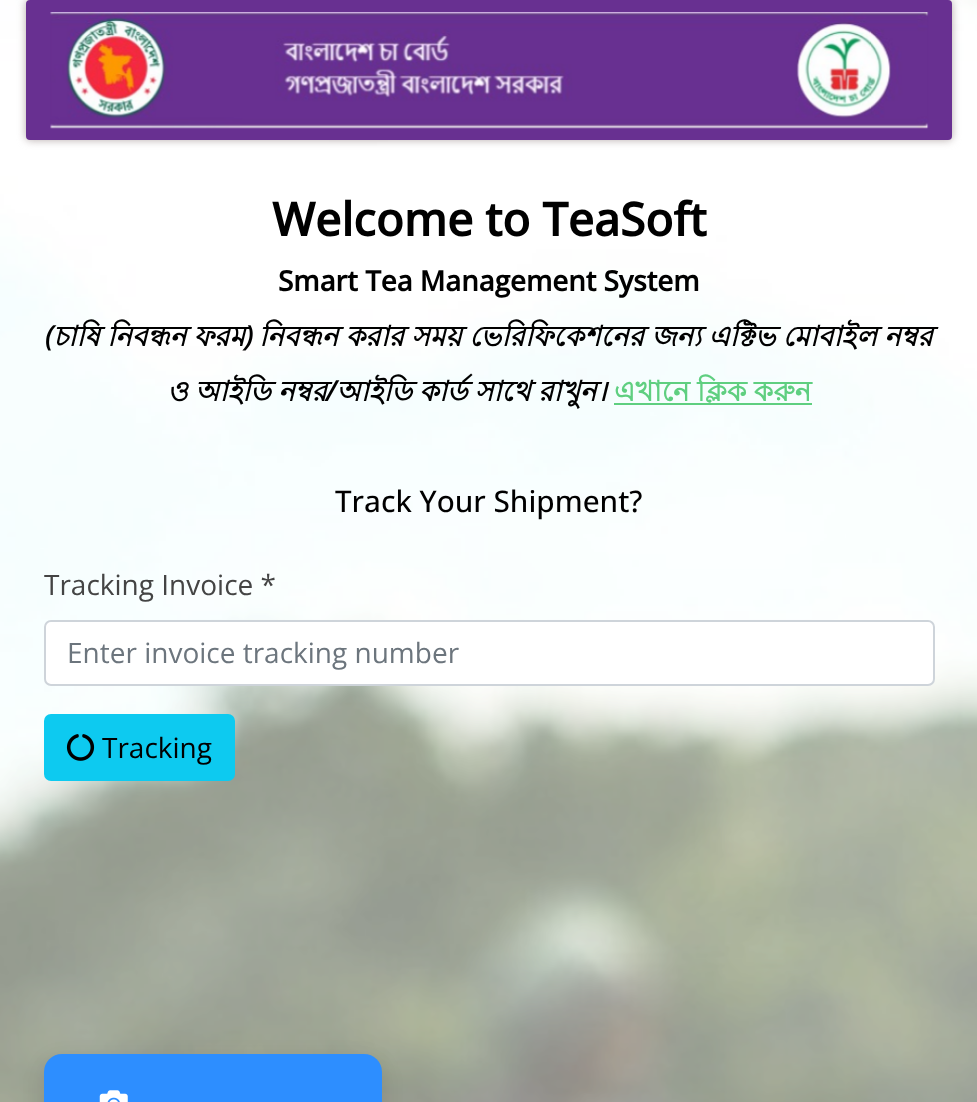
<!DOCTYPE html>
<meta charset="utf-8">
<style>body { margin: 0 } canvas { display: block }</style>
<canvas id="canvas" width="977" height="1102"></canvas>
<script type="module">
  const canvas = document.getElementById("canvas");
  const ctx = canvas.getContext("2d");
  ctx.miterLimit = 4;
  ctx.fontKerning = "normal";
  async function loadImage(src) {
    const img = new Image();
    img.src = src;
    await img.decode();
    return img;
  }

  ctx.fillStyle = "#ffffff";
  ctx.fillRect(0, 0, 977, 1102);
  ctx.drawImage(await loadImage("img1.png"), 0, 0, 977, 1102);
  ctx.fillStyle = "#b4aaaa";
  ctx.filter = "blur(4.5px)";
  ctx.beginPath();
  ctx.roundRect(26, 0, 926, 140, 4);
  ctx.fill();
  ctx.filter = "none";
  ctx.fillStyle = "#683091";
  ctx.beginPath();
  ctx.roundRect(26, 0, 926, 140, 4);
  ctx.fill();
  ctx.drawImage(await loadImage("img2.png"), 50, 12, 879, 117);
  ctx.font = "bold 46px Open Sans";
  ctx.fillStyle = "#000000";
  ctx.fillText("Welcome to TeaSoft", 272, 236);
  ctx.font = "bold 28px Open Sans";
  ctx.fillText("Smart Tea Management System", 278, 291);
  ctx.font = "italic bold 28px Open Sans";
  ctx.fillText("(", 45, 346);
  ctx.wordSpacing = "-0.5px";
  ctx.font = "italic bold 28px Lohit Bengali";
  ctx.fillText("চাষি নিবন্ধন ফরম", 53, 346);
  ctx.fillText("নিবন্ধন করার সময় ভেরিফিকেশনের জন্য এক্টিভ মোবাইল নম্বর", 259, 346);
  ctx.wordSpacing = "0px";
  ctx.font = "italic bold 28px Open Sans";
  ctx.fillText(")", 245, 346);
  ctx.wordSpacing = "-0.5px";
  ctx.font = "italic bold 28px Lohit Bengali";
  ctx.fillText("ও আইডি নম্বর", 167, 401);
  ctx.fillText("আইডি কার্ড সাথে রাখুন।", 336, 401);
  ctx.fillStyle = "#5fcf80";
  ctx.fillRect(614, 403, 198, 2);
  ctx.font = "bold 28px Lohit Bengali";
  ctx.fillText("এখানে ক্লিক করুন", 614, 401);
  ctx.wordSpacing = "0px";
  ctx.font = "italic bold 28px Open Sans";
  ctx.fillStyle = "#000000";
  ctx.fillText("/", 326, 401);
  ctx.font = "500 29.75px Open Sans";
  ctx.fillText("Track Your Shipment?", 335, 512);
  ctx.font = "28px Open Sans";
  ctx.fillStyle = "#444444";
  ctx.fillText("Tracking Invoice *", 44, 595);
  ctx.fillStyle = "#ffffff";
  ctx.beginPath();
  ctx.roundRect(45, 621, 889, 64, 6);
  ctx.fill();
  ctx.strokeStyle = "#ced4da";
  ctx.lineWidth = 2;
  ctx.stroke();
  ctx.fillStyle = "#6c757d";
  ctx.fillText("Enter invoice tracking number", 67, 663);
  ctx.fillStyle = "#0dcaf0";
  ctx.beginPath();
  ctx.roundRect(45, 715, 189, 65, 6);
  ctx.fill();
  ctx.strokeStyle = "#0dcaf0";
  ctx.stroke();
  ctx.drawImage(await loadImage("img3.png"), 66, 734, 29, 27);
  ctx.fillStyle = "#000000";
  ctx.fillText("Tracking", 102, 758);
  ctx.fillStyle = "rgba(0, 0, 0, 0.1)";
  ctx.filter = "blur(10.5px)";
  ctx.beginPath();
  ctx.roundRect(44, 1061, 338, 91, 18);
  ctx.fill();
  ctx.filter = "none";
  ctx.fillStyle = "#2d8eff";
  ctx.beginPath();
  ctx.roundRect(44, 1054, 338, 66, 18);
  ctx.fill();
  ctx.drawImage(await loadImage("img4.png"), 99, 1090, 29, 12);
</script>
